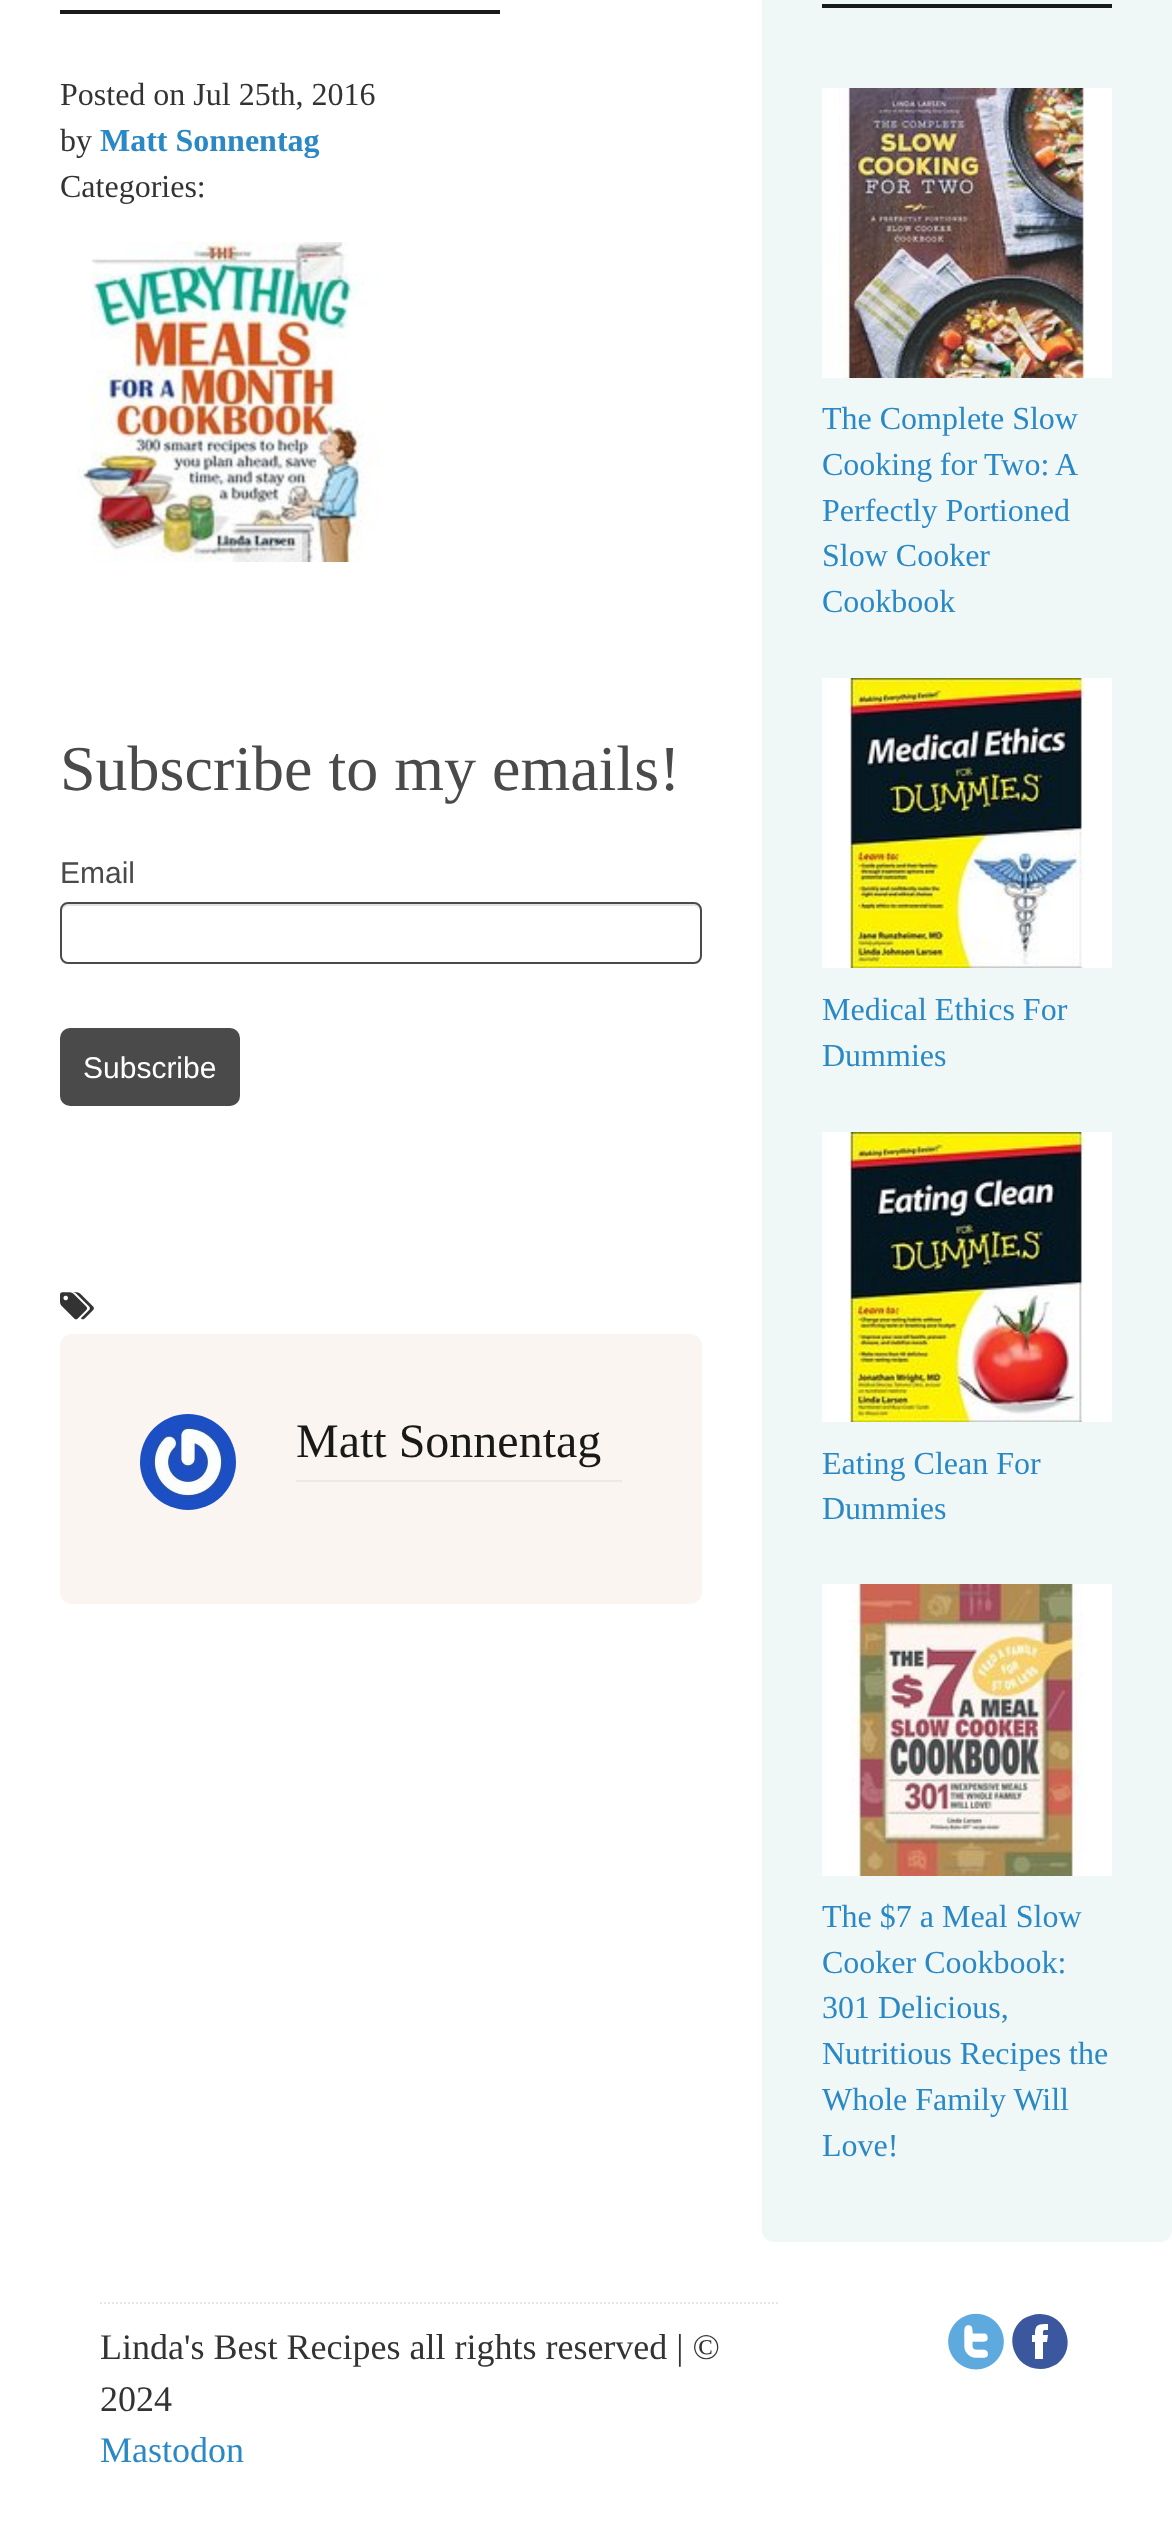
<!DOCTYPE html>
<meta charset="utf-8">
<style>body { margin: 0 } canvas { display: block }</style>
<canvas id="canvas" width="1172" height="2538"></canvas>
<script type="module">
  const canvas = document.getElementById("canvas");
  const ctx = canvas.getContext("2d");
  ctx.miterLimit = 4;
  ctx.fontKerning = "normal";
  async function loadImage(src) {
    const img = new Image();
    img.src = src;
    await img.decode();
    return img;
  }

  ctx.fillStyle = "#ffffff";
  ctx.fillRect(0, 0, 1172, 2538);
  ctx.fillStyle = "#1a1a1a";
  ctx.fillRect(60, 10, 440, 4);
  ctx.font = "32px Liberation Serif";
  ctx.fillStyle = "#333333";
  ctx.fillText("Posted on Jul 25th, 2016", 60, 105);
  ctx.fillText("by", 60, 151);
  ctx.font = "bold 32px Liberation Serif";
  ctx.fillStyle = "#2a88c5";
  ctx.fillText("Matt Sonnentag", 100, 151);
  ctx.font = "32px Liberation Serif";
  ctx.fillStyle = "#333333";
  ctx.fillText("Categories:", 60, 197);
  ctx.drawImage(await loadImage("img1.png"), 78, 242, 302, 320);
  ctx.font = "64px Liberation Serif";
  ctx.fillStyle = "#4a4a4a";
  ctx.fillText("Subscribe to my emails!", 60, 790);
  ctx.font = "30px Liberation Sans";
  ctx.fillText("Email", 60, 883);
  ctx.fillStyle = "#e2e2e2";
  ctx.beginPath();
  ctx.moveTo(68, 906);
  ctx.lineTo(694, 906);
  ctx.bezierCurveTo(697, 906, 700, 909, 700, 912);
  ctx.lineTo(700, 910);
  ctx.bezierCurveTo(700, 907, 697, 904, 694, 904);
  ctx.lineTo(68, 904);
  ctx.bezierCurveTo(65, 904, 62, 907, 62, 910);
  ctx.lineTo(62, 912);
  ctx.bezierCurveTo(62, 909, 65, 906, 68, 906);
  ctx.closePath();
  ctx.fill();
  ctx.beginPath();
  ctx.roundRect(61, 903, 640, 60, 7);
  ctx.strokeStyle = "#4a4a4a";
  ctx.lineWidth = 2;
  ctx.stroke();
  ctx.fillStyle = "#4a4a4a";
  ctx.beginPath();
  ctx.roundRect(60, 1028, 180, 78, 10);
  ctx.fill();
  ctx.fillStyle = "#ffffff";
  ctx.fillText("Subscribe", 83, 1078);
  ctx.drawImage(await loadImage("img2.png"), 60, 1292, 34, 28);
  ctx.fillStyle = "#faf5f1";
  ctx.beginPath();
  ctx.roundRect(60, 1334, 642, 270, 12);
  ctx.fill();
  ctx.drawImage(await loadImage("img3.png"), 140, 1414, 96, 96);
  ctx.font = "48px Liberation Serif";
  ctx.fillStyle = "#191918";
  ctx.fillText("Matt Sonnentag", 296, 1457);
  ctx.fillStyle = "#eee9e5";
  ctx.fillRect(296, 1480, 326, 2);
  ctx.fillStyle = "#f0f7f7";
  ctx.beginPath();
  ctx.roundRect(762, -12, 410, 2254, 12);
  ctx.fill();
  ctx.fillStyle = "#181919";
  ctx.fillRect(822, 4, 290, 4);
  ctx.drawImage(await loadImage("img4.png"), 822, 88, 290, 290);
  ctx.font = "32px Liberation Serif";
  ctx.fillStyle = "#2a88c5";
  ctx.fillText("The Complete Slow", 822, 429);
  ctx.wordSpacing = "-0.5px";
  ctx.fillText("Cooking for Two: A", 822, 475);
  ctx.wordSpacing = "0px";
  ctx.fillText("Perfectly Portioned", 822, 521);
  ctx.fillText("Slow Cooker", 822, 566);
  ctx.fillText("Cookbook", 822, 612);
  ctx.drawImage(await loadImage("img5.png"), 822, 678, 290, 290);
  ctx.fillText("Medical Ethics For", 822, 1020);
  ctx.fillText("Dummies", 822, 1066);
  ctx.drawImage(await loadImage("img6.png"), 822, 1132, 290, 290);
  ctx.fillText("Eating Clean For", 822, 1474);
  ctx.fillText("Dummies", 822, 1519);
  ctx.drawImage(await loadImage("img7.png"), 822, 1584, 290, 292);
  ctx.fillText("The $7 a Meal Slow", 822, 1927);
  ctx.fillText("Cooker Cookbook:", 822, 1973);
  ctx.fillText("301 Delicious,", 822, 2018);
  ctx.fillText("Nutritious Recipes the", 822, 2064);
  ctx.fillText("Whole Family Will", 822, 2110);
  ctx.fillText("Love!", 822, 2156);
  ctx.beginPath();
  ctx.moveTo(100, 2303);
  ctx.lineTo(780, 2303);
  ctx.strokeStyle = "#e6e6e6";
  ctx.setLineDash([2, 2]);
  ctx.stroke();
  ctx.font = "36px Liberation Serif";
  ctx.fillStyle = "#333333";
  ctx.fillText("Linda's Best Recipes all rights reserved | ©", 100, 2359);
  ctx.fillText("2024", 100, 2411);
  ctx.fillStyle = "#2a88c5";
  ctx.fillText("Mastodon", 100, 2462);
  ctx.drawImage(await loadImage("img8.png"), 948, 2313, 56, 57);
  ctx.fillStyle = "#3b579d";
  ctx.beginPath();
  ctx.moveTo(1040, 2314);
  ctx.bezierCurveTo(1034, 2314, 1028, 2316, 1023, 2319);
  ctx.bezierCurveTo(1002, 2335, 1014, 2369, 1040, 2369);
  ctx.bezierCurveTo(1046, 2369, 1052, 2367, 1057, 2364);
  ctx.bezierCurveTo(1078, 2348, 1066, 2314, 1040, 2314);
  ctx.closePath();
  ctx.moveTo(1047, 2342);
  ctx.lineTo(1043, 2342);
  ctx.lineTo(1043, 2359);
  ctx.lineTo(1035, 2359);
  ctx.lineTo(1035, 2342);
  ctx.lineTo(1032, 2342);
  ctx.lineTo(1032, 2335);
  ctx.lineTo(1035, 2335);
  ctx.bezierCurveTo(1035, 2325, 1037, 2324, 1048, 2324);
  ctx.lineTo(1048, 2330);
  ctx.bezierCurveTo(1043, 2330, 1043, 2329, 1043, 2335);
  ctx.lineTo(1048, 2335);
  ctx.closePath();
  ctx.fill();
</script>
